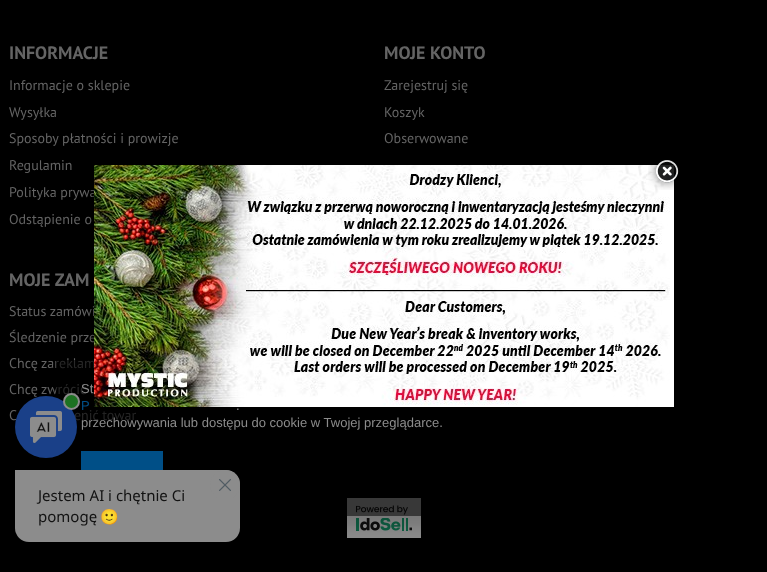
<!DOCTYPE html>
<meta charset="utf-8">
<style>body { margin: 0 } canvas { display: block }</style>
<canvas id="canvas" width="767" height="572"></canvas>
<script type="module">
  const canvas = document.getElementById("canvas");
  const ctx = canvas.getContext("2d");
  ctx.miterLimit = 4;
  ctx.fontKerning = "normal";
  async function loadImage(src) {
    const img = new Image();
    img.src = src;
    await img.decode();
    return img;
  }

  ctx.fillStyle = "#000000";
  ctx.fillRect(0, 0, 767, 572);
  ctx.font = "bold 18px PT Sans";
  ctx.fillStyle = "#646464";
  ctx.fillText("INFORMACJE", 9, 59);
  ctx.font = "14px PT Sans";
  ctx.fillText("Informacje o sklepie", 9, 90);
  ctx.fillText("Wysyłka", 9, 117);
  ctx.fillText("Sposoby płatności i prowizje", 9, 143);
  ctx.fillText("Regulamin", 9, 170);
  ctx.fillText("Polityka prywa", 9, 197);
  ctx.fillText("Odstąpienie o", 9, 224);
  ctx.font = "bold 18px PT Sans";
  ctx.fillText("MOJE KONTO", 384, 59);
  ctx.font = "14px PT Sans";
  ctx.fillText("Zarejestruj się", 384, 90);
  ctx.fillText("Koszyk", 384, 117);
  ctx.fillText("Obserwowane", 384, 143);
  ctx.font = "bold 18px PT Sans";
  ctx.fillText("MOJE ZAM", 9, 286);
  ctx.font = "14px PT Sans";
  ctx.fillText("Status zamówi", 9, 316);
  ctx.fillText("Śledzenie prze", 9, 342);
  ctx.fillText("Chcę zareklam", 9, 368);
  ctx.fillText("Chcę zwrócić t", 9, 394);
  ctx.fillText("C", 9, 420);
  ctx.fillText("enić towar", 74, 420);
  ctx.drawImage(await loadImage("img1.png"), 347, 498, 74, 40);
  ctx.save();
  ctx.beginPath();
  ctx.moveTo(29, 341);
  ctx.lineTo(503, 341);
  ctx.lineTo(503, 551);
  ctx.lineTo(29, 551);
  ctx.closePath();
  ctx.moveTo(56, 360);
  ctx.lineTo(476, 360);
  ctx.lineTo(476, 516);
  ctx.lineTo(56, 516);
  ctx.closePath();
  ctx.clip("evenodd");
  ctx.fillStyle = "rgba(0, 0, 0, 0.15)";
  ctx.filter = "blur(7.5px)";
  ctx.beginPath();
  ctx.rect(53, 365, 426, 162);
  ctx.fill();
  ctx.filter = "none";
  ctx.restore();
  ctx.fillStyle = "rgba(0, 0, 0, 0.6)";
  ctx.fillRect(56, 360, 365, 156);
  ctx.fillStyle = "rgba(0, 0, 0, 0.5)";
  ctx.filter = "blur(4px)";
  ctx.beginPath();
  ctx.rect(94, 168, 580, 242);
  ctx.fill();
  ctx.filter = "none";
  ctx.drawImage(await loadImage("img2.png"), 94, 165, 580, 242);
  ctx.drawImage(await loadImage("img3.png"), 648, 160, 31, 30);
  ctx.font = "13px Liberation Sans";
  ctx.fillStyle = "#8c8c8c";
  ctx.fillText("St", 81, 393);
  ctx.fillStyle = "#004f87";
  ctx.fillText("P", 81, 410);
  ctx.fillStyle = "#8c8c8c";
  ctx.fillText(".", 236, 410);
  ctx.fillText("przechowywania lub dostępu do cookie w Twojej przeglądarce.", 81, 427);
  ctx.fillStyle = "#004f87";
  ctx.fillRect(81, 451, 82, 19);
  ctx.fillStyle = "#1a4088";
  ctx.beginPath();
  ctx.arc(46, 427, 31, 0, Math.PI * 2);
  ctx.fill();
  ctx.fillStyle = "#1d7222";
  ctx.beginPath();
  ctx.arc(71.5, 401.5, 7.5, 0, Math.PI * 2);
  ctx.fill();
  ctx.strokeStyle = "#8c8c8c";
  ctx.lineWidth = 2;
  ctx.stroke();
  ctx.drawImage(await loadImage("img4.png"), 30, 411, 32, 32);
  ctx.fillStyle = "#8c8c8c";
  ctx.beginPath();
  ctx.roundRect(15, 470, 225, 72, [0, 14, 14, 14]);
  ctx.fill();
  ctx.beginPath();
  ctx.arc(225, 485, 15, 0, Math.PI * 2);
  ctx.fill();
  ctx.drawImage(await loadImage("img5.png"), 219, 479, 12, 12);
  ctx.font = "15px Noto Sans";
  ctx.fillStyle = "#121212";
  ctx.fillText("Jestem AI i chętnie Ci", 38, 501);
  ctx.fillText("pomogę", 38, 522);
  ctx.font = "15px Noto Color Emoji";
  ctx.fillText("🙂", 100, 522);
</script>
